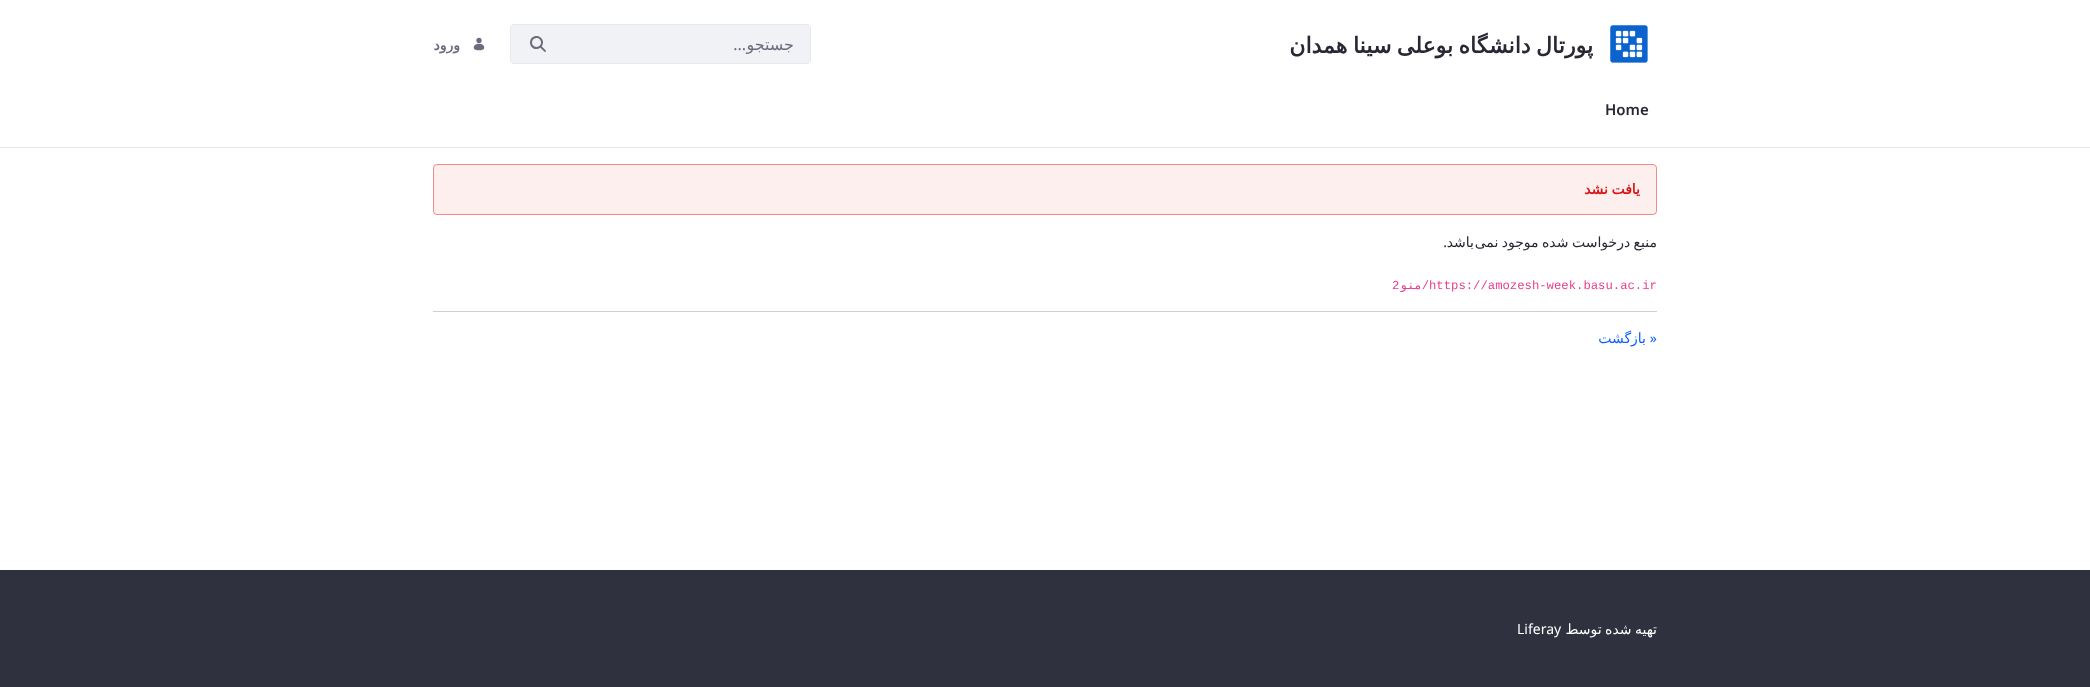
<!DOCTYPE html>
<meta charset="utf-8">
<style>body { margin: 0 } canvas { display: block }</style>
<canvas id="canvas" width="2090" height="687"></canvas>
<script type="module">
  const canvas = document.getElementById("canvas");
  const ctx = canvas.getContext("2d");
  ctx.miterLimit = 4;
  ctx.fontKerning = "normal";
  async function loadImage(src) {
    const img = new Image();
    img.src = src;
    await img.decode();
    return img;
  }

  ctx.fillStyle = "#ffffff";
  ctx.fillRect(0, 0, 2090, 687);
  ctx.drawImage(await loadImage("img1.png"), 1610, 25, 38, 38);
  ctx.wordSpacing = "-1.5px";
  ctx.direction = "rtl";
  ctx.font = "bold 22px DejaVu Sans";
  ctx.fillStyle = "#272833";
  ctx.fillText("پورتال دانشگاه بوعلی سینا همدان", 1593, 53);
  ctx.fillStyle = "#f1f2f5";
  ctx.beginPath();
  ctx.roundRect(565, 25, 245, 38, [0, 3, 3, 0]);
  ctx.fill();
  ctx.fillStyle = "#e7e7ed";
  ctx.beginPath();
  ctx.moveTo(565, 24);
  ctx.lineTo(807, 24);
  ctx.bezierCurveTo(809, 24, 811, 26, 811, 28);
  ctx.lineTo(811, 60);
  ctx.bezierCurveTo(811, 62, 809, 64, 807, 64);
  ctx.lineTo(565, 64);
  ctx.closePath();
  ctx.moveTo(565, 25);
  ctx.lineTo(807, 25);
  ctx.bezierCurveTo(809, 25, 810, 26, 810, 28);
  ctx.lineTo(810, 60);
  ctx.bezierCurveTo(810, 62, 809, 63, 807, 63);
  ctx.lineTo(565, 63);
  ctx.closePath();
  ctx.fill("evenodd");
  ctx.wordSpacing = "0px";
  ctx.font = "16px DejaVu Sans";
  ctx.fillStyle = "#6b6c7e";
  ctx.fillText("جستجو", 794, 50);
  ctx.font = "16px Noto Sans";
  ctx.fillText("...", 746, 50);
  ctx.fillStyle = "#f1f2f5";
  ctx.beginPath();
  ctx.roundRect(511, 25, 54, 38, [3, 0, 0, 3]);
  ctx.fill();
  ctx.fillStyle = "#e7e7ed";
  ctx.beginPath();
  ctx.moveTo(514, 24);
  ctx.lineTo(565, 24);
  ctx.lineTo(565, 64);
  ctx.lineTo(514, 64);
  ctx.bezierCurveTo(512, 64, 510, 62, 510, 60);
  ctx.lineTo(510, 28);
  ctx.bezierCurveTo(510, 26, 512, 24, 514, 24);
  ctx.closePath();
  ctx.moveTo(514, 25);
  ctx.lineTo(565, 25);
  ctx.lineTo(565, 63);
  ctx.lineTo(514, 63);
  ctx.bezierCurveTo(512, 63, 511, 62, 511, 60);
  ctx.lineTo(511, 28);
  ctx.bezierCurveTo(511, 26, 512, 25, 514, 25);
  ctx.closePath();
  ctx.fill("evenodd");
  ctx.drawImage(await loadImage("img2.png"), 530, 36, 16, 16);
  ctx.drawImage(await loadImage("img3.png"), 473, 37, 12, 14);
  ctx.font = "bold 14px DejaVu Sans";
  ctx.fillStyle = "#6b6c7e";
  ctx.fillText("ورود", 460, 50);
  ctx.fillStyle = "#e7e7ed";
  ctx.fillRect(0, 147, 2090, 1);
  ctx.direction = "ltr";
  ctx.font = "600 15px Noto Sans";
  ctx.fillStyle = "#272833";
  ctx.fillText("Home", 1605, 115);
  ctx.fillStyle = "#feefef";
  ctx.beginPath();
  ctx.roundRect(433.5, 164.5, 1223, 50, 3.5);
  ctx.fill();
  ctx.strokeStyle = "#f48989";
  ctx.stroke();
  ctx.wordSpacing = "-1px";
  ctx.direction = "rtl";
  ctx.font = "bold 14px DejaVu Sans";
  ctx.fillStyle = "#da1414";
  ctx.fillText("یافت نشد", 1640, 194);
  ctx.font = "14px DejaVu Sans";
  ctx.fillStyle = "#272833";
  ctx.fillText("منبع درخواست شده موجود نمی", 1657, 247);
  ctx.wordSpacing = "0px";
  ctx.fillText("باشد", 1474, 247);
  ctx.font = "14px Noto Sans";
  ctx.fillText(".", 1447, 247);
  ctx.direction = "ltr";
  ctx.font = "12.25px Liberation Mono";
  ctx.fillStyle = "#e83e8c";
  ctx.fillText("https://amozesh-week.basu.ac.ir", 1429, 289);
  ctx.direction = "rtl";
  ctx.fillText("/", 1429, 289);
  ctx.font = "12.25px DejaVu Sans Mono";
  ctx.fillText("منو", 1422, 289);
  ctx.direction = "ltr";
  ctx.font = "12.25px Liberation Mono";
  ctx.fillText("2", 1392, 289);
  ctx.fillStyle = "#cdced9";
  ctx.fillRect(433, 311, 1224, 1);
  ctx.direction = "rtl";
  ctx.font = "14px Noto Sans";
  ctx.fillStyle = "#0b5fff";
  ctx.fillText("«", 1657, 343);
  ctx.font = "14px DejaVu Sans";
  ctx.fillText("بازگشت", 1646, 343);
  ctx.fillStyle = "#30313f";
  ctx.fillRect(0, 570, 2090, 117);
  ctx.wordSpacing = "-1px";
  ctx.fillStyle = "#ffffff";
  ctx.fillText("تهیه شده توسط", 1657, 634);
  ctx.wordSpacing = "0px";
  ctx.direction = "ltr";
  ctx.font = "14px Noto Sans";
  ctx.fillText("Liferay", 1517, 634);
</script>
